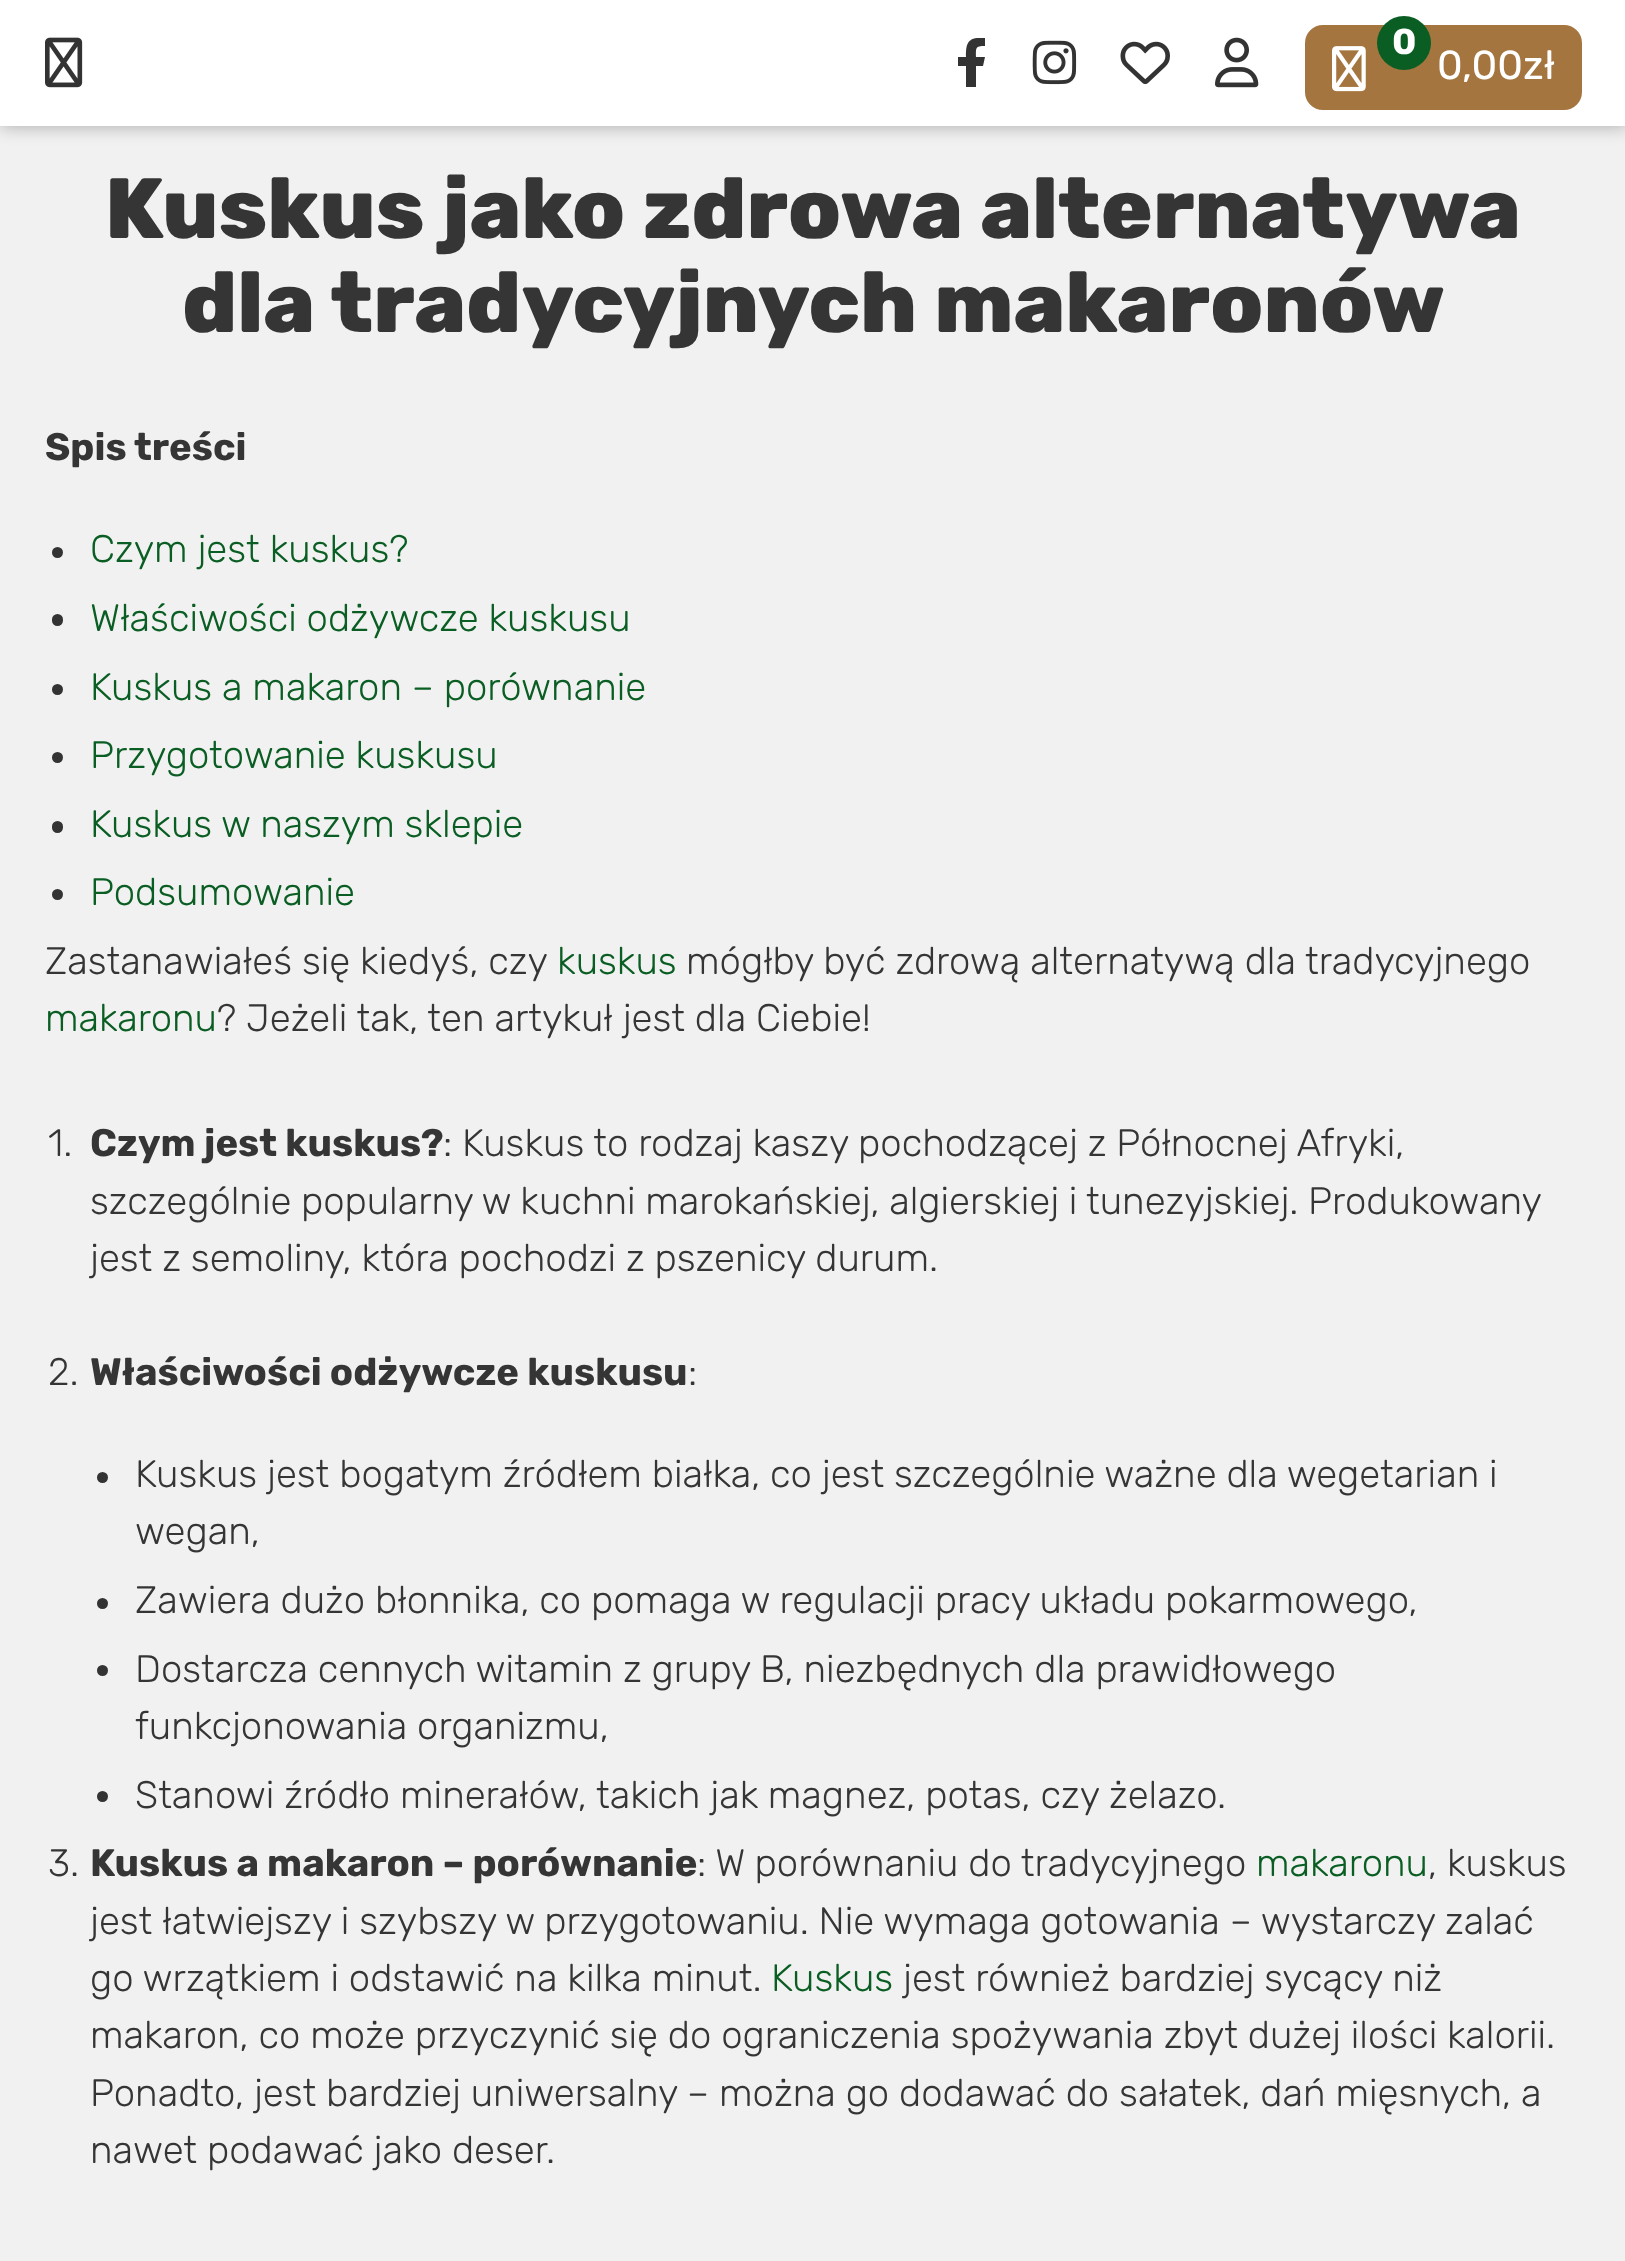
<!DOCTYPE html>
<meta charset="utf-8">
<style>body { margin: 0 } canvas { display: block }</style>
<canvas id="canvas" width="1625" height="2261"></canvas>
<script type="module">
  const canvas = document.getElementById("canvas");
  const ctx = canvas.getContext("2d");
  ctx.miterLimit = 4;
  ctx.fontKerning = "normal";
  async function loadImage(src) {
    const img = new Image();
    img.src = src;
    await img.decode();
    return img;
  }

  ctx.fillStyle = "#f1f1f1";
  ctx.fillRect(0, 0, 1625, 2261);
  ctx.fillStyle = "rgba(0, 0, 0, 0.3)";
  ctx.filter = "blur(9px)";
  ctx.beginPath();
  ctx.rect(0, 0, 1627, 126);
  ctx.fill();
  ctx.filter = "none";
  ctx.fillStyle = "#ffffff";
  ctx.fillRect(0, 0, 1625, 126);
  ctx.drawImage(await loadImage("img1.png"), 45, 37, 38, 51);
  ctx.fillStyle = "#333333";
  ctx.beginPath();
  ctx.moveTo(983, 66);
  ctx.lineTo(985, 57);
  ctx.lineTo(976, 57);
  ctx.bezierCurveTo(976, 48, 975, 46, 985, 46);
  ctx.lineTo(985, 38);
  ctx.lineTo(977, 38);
  ctx.bezierCurveTo(966, 39, 966, 48, 966, 57);
  ctx.lineTo(958, 57);
  ctx.lineTo(958, 66);
  ctx.lineTo(966, 66);
  ctx.lineTo(966, 87);
  ctx.lineTo(976, 87);
  ctx.lineTo(976, 66);
  ctx.closePath();
  ctx.fill();
  ctx.drawImage(await loadImage("img2.png"), 1032, 40, 45, 45);
  ctx.drawImage(await loadImage("img3.png"), 1120, 41, 50, 44);
  ctx.drawImage(await loadImage("img4.png"), 1215, 37, 44, 51);
  ctx.fillStyle = "#a5753f";
  ctx.beginPath();
  ctx.roundRect(1307.5, 27.5, 272, 80, 15.5);
  ctx.fill();
  ctx.strokeStyle = "#a5753f";
  ctx.lineWidth = 5;
  ctx.stroke();
  ctx.fillStyle = "#0a5e23";
  ctx.beginPath();
  ctx.arc(1404, 43, 27, 0, Math.PI * 2);
  ctx.fill();
  ctx.font = "bold 36px Rubik";
  ctx.fillStyle = "#ffffff";
  ctx.fillText("0", 1392, 54);
  ctx.drawImage(await loadImage("img5.png"), 1332, 46, 34, 46);
  ctx.font = "40.5px Rubik";
  ctx.fillText("0,00zł", 1437, 79);
  ctx.font = "800 85.5px Rubik";
  ctx.fillStyle = "#353535";
  ctx.fillText("Kuskus jako zdrowa alternatywa", 105, 238);
  ctx.fillText("dla tradycyjnych makaronów", 182, 332);
  ctx.font = "bold 38.25px Rubik";
  ctx.fillText("Spis treści", 45, 460);
  ctx.fillStyle = "#333333";
  ctx.beginPath();
  ctx.arc(57.5, 552.5, 5.5, 0, Math.PI * 2);
  ctx.fill();
  ctx.font = "300 38.25px Rubik";
  ctx.fillStyle = "#0a5e23";
  ctx.fillText("Czym jest kuskus?", 90, 562);
  ctx.fillStyle = "#333333";
  ctx.beginPath();
  ctx.roundRect(52, 614, 11, 12, 5.5);
  ctx.fill();
  ctx.fillStyle = "#0a5e23";
  ctx.fillText("Właściwości odżywcze kuskusu", 90, 631);
  ctx.fillStyle = "#333333";
  ctx.beginPath();
  ctx.arc(57.5, 689.5, 5.5, 0, Math.PI * 2);
  ctx.fill();
  ctx.fillStyle = "#0a5e23";
  ctx.fillText("Kuskus a makaron – porównanie", 90, 700);
  ctx.fillStyle = "#333333";
  ctx.beginPath();
  ctx.arc(57.5, 757.5, 5.5, 0, Math.PI * 2);
  ctx.fill();
  ctx.fillStyle = "#0a5e23";
  ctx.fillText("Przygotowanie kuskusu", 90, 768);
  ctx.fillStyle = "#333333";
  ctx.beginPath();
  ctx.roundRect(52, 821, 11, 12, 5.5);
  ctx.fill();
  ctx.fillStyle = "#0a5e23";
  ctx.fillText("Kuskus w naszym sklepie", 90, 837);
  ctx.fillStyle = "#333333";
  ctx.beginPath();
  ctx.arc(57.5, 894.5, 5.5, 0, Math.PI * 2);
  ctx.fill();
  ctx.fillStyle = "#0a5e23";
  ctx.fillText("Podsumowanie", 90, 905);
  ctx.fillStyle = "#353535";
  ctx.fillText("Zastanawiałeś się kiedyś, czy", 45, 974);
  ctx.fillStyle = "#0a5e23";
  ctx.fillText("kuskus", 557, 974);
  ctx.fillStyle = "#353535";
  ctx.fillText("mógłby być zdrową alternatywą dla tradycyjnego", 686, 974);
  ctx.fillStyle = "#0a5e23";
  ctx.fillText("makaronu", 45, 1031);
  ctx.fillStyle = "#353535";
  ctx.fillText("? Jeżeli tak, ten artykuł jest dla Ciebie!", 217, 1031);
  ctx.fillText("1.", 48, 1156);
  ctx.font = "bold 38.25px Rubik";
  ctx.fillText("Czym jest kuskus?", 90, 1156);
  ctx.font = "300 38.25px Rubik";
  ctx.fillText(": Kuskus to rodzaj kaszy pochodzącej z Północnej Afryki,", 443, 1156);
  ctx.wordSpacing = "-0.25px";
  ctx.fillText("szczególnie popularny w kuchni marokańskiej, algierskiej i tunezyjskiej. Produkowany", 90, 1214);
  ctx.wordSpacing = "0px";
  ctx.fillText("jest z semoliny, która pochodzi z pszenicy durum.", 90, 1271);
  ctx.fillText("2.", 48, 1385);
  ctx.font = "bold 38.25px Rubik";
  ctx.fillText("Właściwości odżywcze kuskusu", 90, 1385);
  ctx.font = "300 38.25px Rubik";
  ctx.fillText(":", 688, 1385);
  ctx.fillStyle = "#333333";
  ctx.beginPath();
  ctx.arc(102.5, 1477.5, 5.5, 0, Math.PI * 2);
  ctx.fill();
  ctx.fillStyle = "#353535";
  ctx.fillText("Kuskus jest bogatym źródłem białka, co jest szczególnie ważne dla wegetarian i", 135, 1487);
  ctx.fillText("wegan,", 135, 1544);
  ctx.fillStyle = "#333333";
  ctx.beginPath();
  ctx.arc(102.5, 1603.5, 5.5, 0, Math.PI * 2);
  ctx.fill();
  ctx.fillStyle = "#353535";
  ctx.fillText("Zawiera dużo błonnika, co pomaga w regulacji pracy układu pokarmowego,", 135, 1613);
  ctx.fillStyle = "#333333";
  ctx.beginPath();
  ctx.arc(102.5, 1670.5, 5.5, 0, Math.PI * 2);
  ctx.fill();
  ctx.fillStyle = "#353535";
  ctx.fillText("Dostarcza cennych witamin z grupy B, niezbędnych dla prawidłowego", 135, 1682);
  ctx.fillText("funkcjonowania organizmu,", 135, 1739);
  ctx.fillStyle = "#333333";
  ctx.beginPath();
  ctx.arc(102.5, 1796.5, 5.5, 0, Math.PI * 2);
  ctx.fill();
  ctx.fillStyle = "#353535";
  ctx.fillText("Stanowi źródło minerałów, takich jak magnez, potas, czy żelazo.", 135, 1808);
  ctx.fillText("3.", 48, 1876);
  ctx.font = "bold 38.25px Rubik";
  ctx.fillText("Kuskus a makaron – porównanie", 90, 1876);
  ctx.font = "300 38.25px Rubik";
  ctx.fillText(": W porównaniu do tradycyjnego", 697, 1876);
  ctx.fillStyle = "#0a5e23";
  ctx.fillText("makaronu", 1256, 1876);
  ctx.fillStyle = "#353535";
  ctx.fillText(", kuskus", 1428, 1876);
  ctx.fillText("jest łatwiejszy i szybszy w przygotowaniu. Nie wymaga gotowania – wystarczy zalać", 90, 1934);
  ctx.fillText("go wrzątkiem i odstawić na kilka minut.", 90, 1991);
  ctx.fillStyle = "#0a5e23";
  ctx.fillText("Kuskus", 771, 1991);
  ctx.fillStyle = "#353535";
  ctx.fillText("jest również bardziej sycący niż", 903, 1991);
  ctx.fillText("makaron, co może przyczynić się do ograniczenia spożywania zbyt dużej ilości kalorii.", 90, 2048);
  ctx.fillText("Ponadto, jest bardziej uniwersalny – można go dodawać do sałatek, dań mięsnych, a", 90, 2106);
  ctx.fillText("nawet podawać jako deser.", 90, 2163);
</script>
